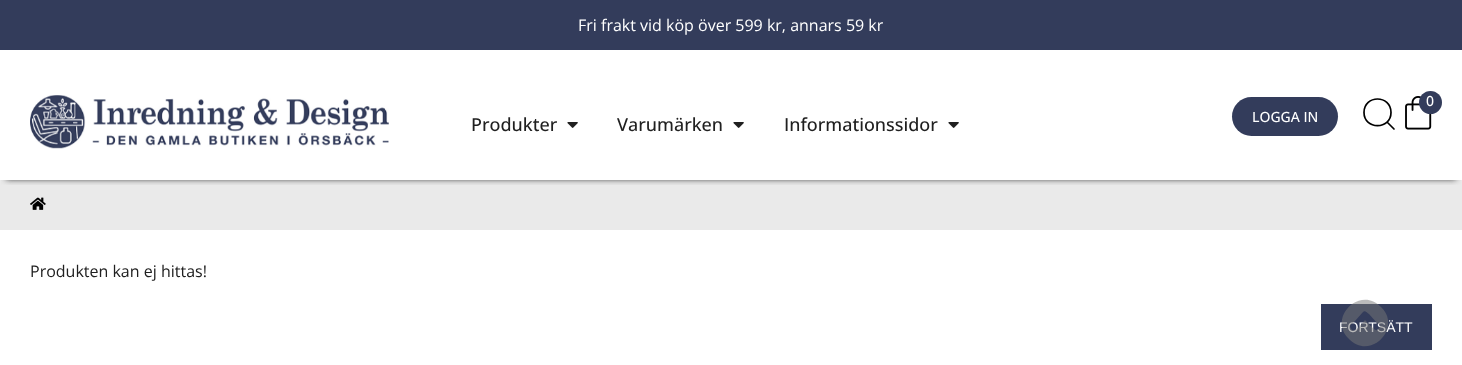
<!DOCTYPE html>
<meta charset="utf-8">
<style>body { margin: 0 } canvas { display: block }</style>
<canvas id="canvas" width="1462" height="365"></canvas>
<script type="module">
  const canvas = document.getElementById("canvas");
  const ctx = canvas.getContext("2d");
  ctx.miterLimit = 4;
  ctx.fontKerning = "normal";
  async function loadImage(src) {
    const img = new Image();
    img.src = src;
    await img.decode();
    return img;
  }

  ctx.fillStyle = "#ffffff";
  ctx.fillRect(0, 0, 1462, 365);
  ctx.fillStyle = "#333c5b";
  ctx.fillRect(0, 0, 1462, 50);
  ctx.font = "16px Open Sans";
  ctx.fillStyle = "#ffffff";
  ctx.fillText("Fri frakt vid köp över 599 kr, annars 59 kr", 578, 31);
  ctx.fillStyle = "#eaeaea";
  ctx.fillRect(0, 180, 1462, 50);
  ctx.save();
  ctx.beginPath();
  ctx.rect(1, 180, 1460, 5);
  ctx.clip();
  ctx.fillStyle = "#222222";
  ctx.filter = "blur(3px)";
  ctx.beginPath();
  ctx.rect(6, 61, 1450, 118);
  ctx.fill();
  ctx.filter = "none";
  ctx.restore();
  ctx.drawImage(await loadImage("img1.png"), 30, 95, 359, 54);
  ctx.fillStyle = "#333c5b";
  ctx.beginPath();
  ctx.roundRect(1232, 97, 106, 39, 19.5);
  ctx.fill();
  ctx.font = "500 14px Open Sans";
  ctx.fillStyle = "#ffffff";
  ctx.fillText("LOGGA IN", 1252, 122);
  ctx.beginPath();
  ctx.moveTo(1387.5, 122.5);
  ctx.lineTo(1394, 129);
  ctx.moveTo(1364, 112.5);
  ctx.bezierCurveTo(1364, 130, 1391, 130, 1391, 112.5);
  ctx.bezierCurveTo(1391, 94.5, 1364, 94.5, 1364, 112.5);
  ctx.closePath();
  ctx.strokeStyle = "#000000";
  ctx.lineWidth = 1.7;
  ctx.lineCap = "round";
  ctx.lineJoin = "round";
  ctx.stroke();
  ctx.drawImage(await loadImage("img2.png"), 1405, 96, 27, 34);
  ctx.fillStyle = "#333c5b";
  ctx.beginPath();
  ctx.arc(1430.5, 102.5, 11.5, 0, Math.PI * 2);
  ctx.fill();
  ctx.fillStyle = "#ffffff";
  ctx.fillText("0", 1426, 106);
  ctx.font = "500 18px Open Sans";
  ctx.fillStyle = "#202020";
  ctx.fillText("Produkter", 471, 131);
  ctx.drawImage(await loadImage("img3.png"), 567, 122, 11, 6);
  ctx.fillText("Varumärken", 617, 131);
  ctx.drawImage(await loadImage("img3.png"), 733, 122, 11, 6);
  ctx.fillText("Informationssidor", 784, 131);
  ctx.drawImage(await loadImage("img3.png"), 948, 122, 11, 6);
  ctx.drawImage(await loadImage("img4.png"), 30, 197, 16, 13);
  ctx.font = "16px Open Sans";
  ctx.fillText("Produkten kan ej hittas!", 30, 277);
  ctx.fillStyle = "#333c5b";
  ctx.fillRect(1321, 304, 111, 46);
  ctx.font = "14px Liberation Sans";
  ctx.fillStyle = "#ffffff";
  ctx.fillText("FORTSÄTT", 1339, 332);
  ctx.fillStyle = "rgba(119, 119, 119, 0.5)";
  ctx.beginPath();
  ctx.moveTo(1349, 339);
  ctx.bezierCurveTo(1327, 318, 1360, 285, 1381, 307);
  ctx.bezierCurveTo(1403, 328, 1370, 361, 1349, 339);
  ctx.closePath();
  ctx.moveTo(1363, 312);
  ctx.lineTo(1355, 321);
  ctx.bezierCurveTo(1351, 325, 1348, 325, 1352, 330);
  ctx.bezierCurveTo(1355, 332, 1357, 328, 1359, 327);
  ctx.lineTo(1365, 320);
  ctx.bezierCurveTo(1367, 322, 1374, 330, 1376, 330);
  ctx.bezierCurveTo(1377, 331, 1378, 329, 1379, 328);
  ctx.bezierCurveTo(1381, 326, 1379, 324, 1377, 323);
  ctx.lineTo(1369, 314);
  ctx.bezierCurveTo(1367, 313, 1365, 310, 1363, 312);
  ctx.closePath();
  ctx.fill();
</script>
